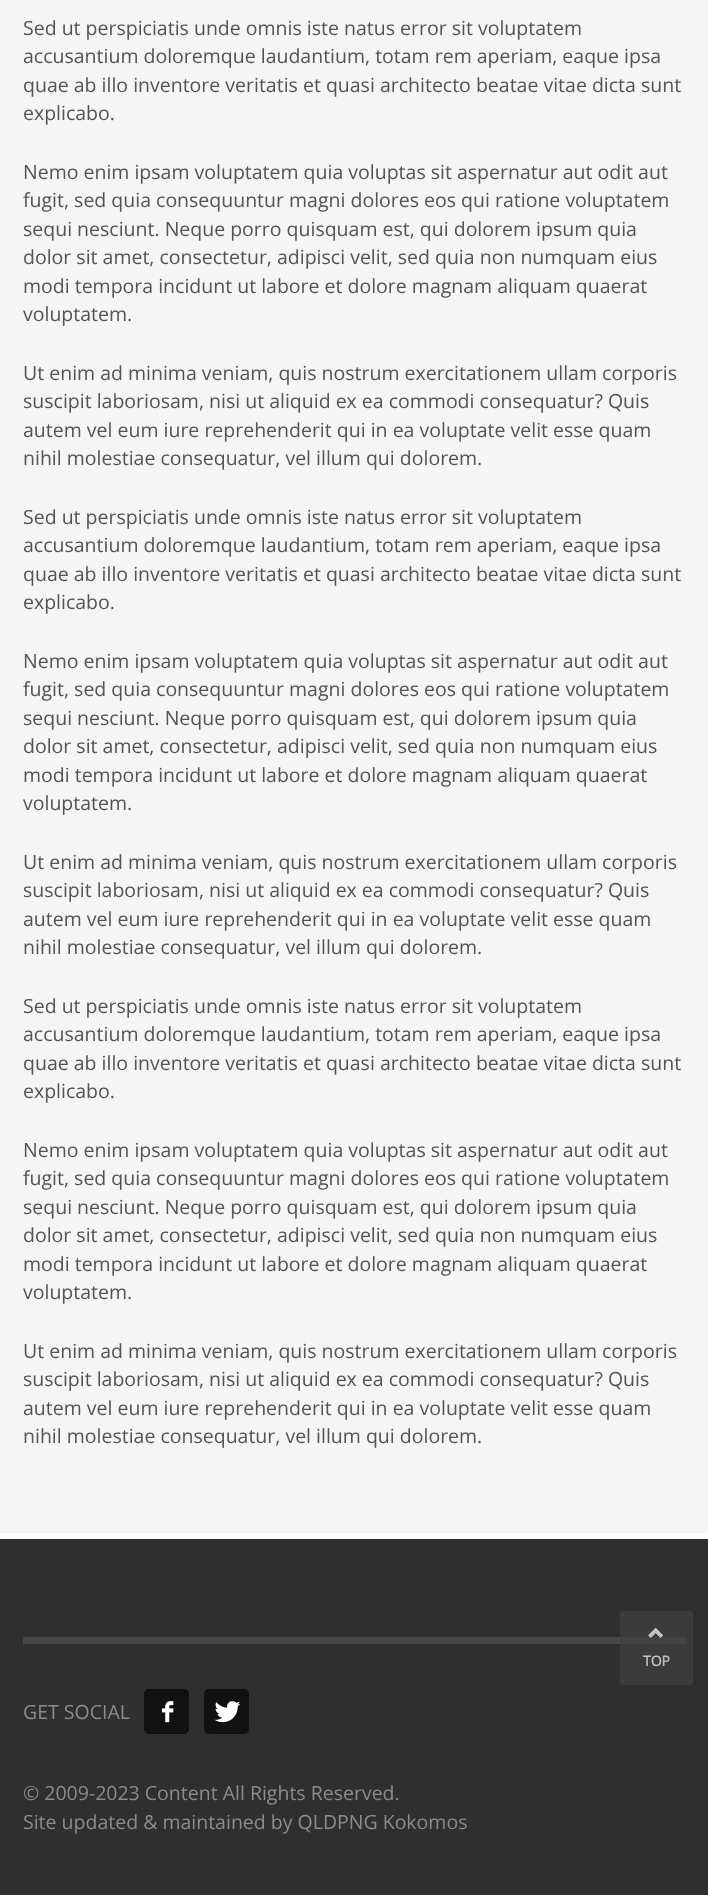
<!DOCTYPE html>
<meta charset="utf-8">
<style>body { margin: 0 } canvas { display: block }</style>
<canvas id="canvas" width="708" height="1895"></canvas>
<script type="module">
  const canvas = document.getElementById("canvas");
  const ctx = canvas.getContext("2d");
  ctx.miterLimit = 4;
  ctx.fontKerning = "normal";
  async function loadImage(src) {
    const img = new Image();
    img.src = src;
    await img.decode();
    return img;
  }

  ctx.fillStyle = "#f5f5f5";
  ctx.fillRect(0, 0, 708, 1895);
  ctx.font = "19.5px Open Sans";
  ctx.fillStyle = "#535353";
  ctx.fillText("Sed ut perspiciatis unde omnis iste natus error sit voluptatem", 23, 35);
  ctx.fillText("accusantium doloremque laudantium, totam rem aperiam, eaque ipsa", 23, 63);
  ctx.fillText("quae ab illo inventore veritatis et quasi architecto beatae vitae dicta sunt", 23, 92);
  ctx.fillText("explicabo.", 23, 120);
  ctx.fillText("Nemo enim ipsam voluptatem quia voluptas sit aspernatur aut odit aut", 23, 179);
  ctx.fillText("fugit, sed quia consequuntur magni dolores eos qui ratione voluptatem", 23, 207);
  ctx.fillText("sequi nesciunt. Neque porro quisquam est, qui dolorem ipsum quia", 23, 236);
  ctx.fillText("dolor sit amet, consectetur, adipisci velit, sed quia non numquam eius", 23, 264);
  ctx.fillText("modi tempora incidunt ut labore et dolore magnam aliquam quaerat", 23, 293);
  ctx.fillText("voluptatem.", 23, 321);
  ctx.fillText("Ut enim ad minima veniam, quis nostrum exercitationem ullam corporis", 23, 380);
  ctx.fillText("suscipit laboriosam, nisi ut aliquid ex ea commodi consequatur? Quis", 23, 408);
  ctx.fillText("autem vel eum iure reprehenderit qui in ea voluptate velit esse quam", 23, 437);
  ctx.fillText("nihil molestiae consequatur, vel illum qui dolorem.", 23, 465);
  ctx.fillText("Sed ut perspiciatis unde omnis iste natus error sit voluptatem", 23, 524);
  ctx.fillText("accusantium doloremque laudantium, totam rem aperiam, eaque ipsa", 23, 552);
  ctx.fillText("quae ab illo inventore veritatis et quasi architecto beatae vitae dicta sunt", 23, 581);
  ctx.fillText("explicabo.", 23, 609);
  ctx.fillText("Nemo enim ipsam voluptatem quia voluptas sit aspernatur aut odit aut", 23, 668);
  ctx.fillText("fugit, sed quia consequuntur magni dolores eos qui ratione voluptatem", 23, 696);
  ctx.fillText("sequi nesciunt. Neque porro quisquam est, qui dolorem ipsum quia", 23, 725);
  ctx.fillText("dolor sit amet, consectetur, adipisci velit, sed quia non numquam eius", 23, 753);
  ctx.fillText("modi tempora incidunt ut labore et dolore magnam aliquam quaerat", 23, 782);
  ctx.fillText("voluptatem.", 23, 810);
  ctx.fillText("Ut enim ad minima veniam, quis nostrum exercitationem ullam corporis", 23, 869);
  ctx.fillText("suscipit laboriosam, nisi ut aliquid ex ea commodi consequatur? Quis", 23, 897);
  ctx.fillText("autem vel eum iure reprehenderit qui in ea voluptate velit esse quam", 23, 926);
  ctx.fillText("nihil molestiae consequatur, vel illum qui dolorem.", 23, 954);
  ctx.fillText("Sed ut perspiciatis unde omnis iste natus error sit voluptatem", 23, 1013);
  ctx.fillText("accusantium doloremque laudantium, totam rem aperiam, eaque ipsa", 23, 1041);
  ctx.fillText("quae ab illo inventore veritatis et quasi architecto beatae vitae dicta sunt", 23, 1070);
  ctx.fillText("explicabo.", 23, 1098);
  ctx.fillText("Nemo enim ipsam voluptatem quia voluptas sit aspernatur aut odit aut", 23, 1157);
  ctx.fillText("fugit, sed quia consequuntur magni dolores eos qui ratione voluptatem", 23, 1185);
  ctx.fillText("sequi nesciunt. Neque porro quisquam est, qui dolorem ipsum quia", 23, 1214);
  ctx.fillText("dolor sit amet, consectetur, adipisci velit, sed quia non numquam eius", 23, 1242);
  ctx.fillText("modi tempora incidunt ut labore et dolore magnam aliquam quaerat", 23, 1271);
  ctx.fillText("voluptatem.", 23, 1299);
  ctx.fillText("Ut enim ad minima veniam, quis nostrum exercitationem ullam corporis", 23, 1358);
  ctx.fillText("suscipit laboriosam, nisi ut aliquid ex ea commodi consequatur? Quis", 23, 1386);
  ctx.fillText("autem vel eum iure reprehenderit qui in ea voluptate velit esse quam", 23, 1415);
  ctx.fillText("nihil molestiae consequatur, vel illum qui dolorem.", 23, 1443);
  ctx.fillStyle = "#2f2f2f";
  ctx.fillRect(0, 1539, 708, 356);
  ctx.fillStyle = "#ffffff";
  ctx.fillRect(0, 1533, 708, 6);
  ctx.fillStyle = "#484848";
  ctx.fillRect(23, 1637, 663, 7);
  ctx.fillStyle = "#8b8c8d";
  ctx.fillText("GET SOCIAL", 23, 1719);
  ctx.fillStyle = "#111111";
  ctx.beginPath();
  ctx.roundRect(144, 1689, 45, 45, 5);
  ctx.fill();
  ctx.drawImage(await loadImage("img1.png"), 162, 1701, 12, 22);
  ctx.beginPath();
  ctx.roundRect(204, 1689, 45, 45, 5);
  ctx.fill();
  ctx.drawImage(await loadImage("img2.png"), 214, 1701, 27, 22);
  ctx.fillStyle = "#8b8c8d";
  ctx.fillText("© 2009-2023 Content All Rights Reserved.", 23, 1800);
  ctx.fillText("Site updated & maintained by QLDPNG Kokomos", 23, 1829);
  ctx.fillStyle = "rgba(64, 64, 64, 0.7)";
  ctx.beginPath();
  ctx.roundRect(620, 1611, 73, 74, 3);
  ctx.fill();
  ctx.drawImage(await loadImage("img3.png"), 648, 1627, 16, 11);
  ctx.font = "bold 14px Open Sans";
  ctx.fillStyle = "#c1c1c1";
  ctx.fillText("TOP", 643, 1666);
</script>
